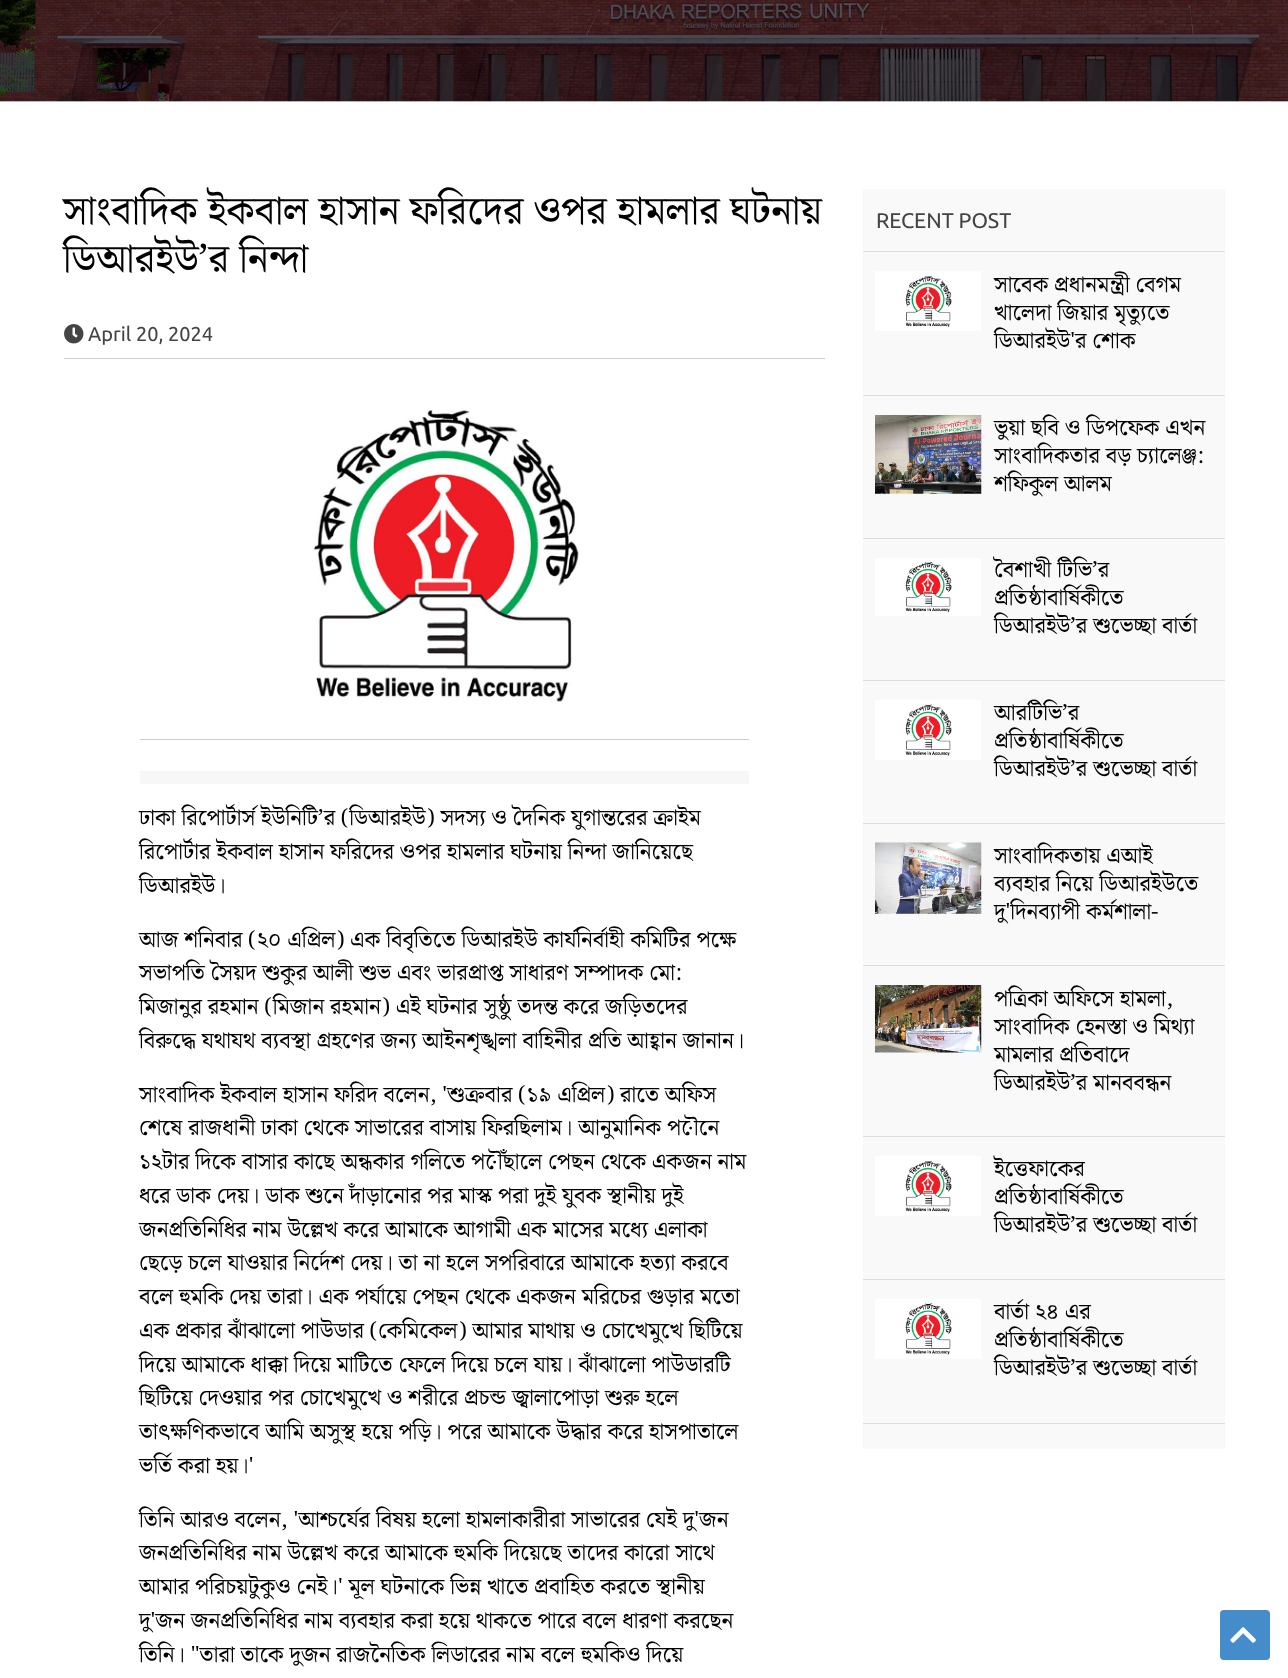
<!DOCTYPE html>
<meta charset="utf-8">
<style>body { margin: 0 } canvas { display: block }</style>
<canvas id="canvas" width="1288" height="1678"></canvas>
<script type="module">
  const canvas = document.getElementById("canvas");
  const ctx = canvas.getContext("2d");
  ctx.miterLimit = 4;
  ctx.fontKerning = "normal";
  async function loadImage(src) {
    const img = new Image();
    img.src = src;
    await img.decode();
    return img;
  }

  ctx.fillStyle = "#ffffff";
  ctx.fillRect(0, 0, 1288, 1678);
  ctx.drawImage(await loadImage("img1.png"), 0, 0, 1288, 102);
  ctx.font = "40px Noto Serif Bengali";
  ctx.fillStyle = "#000000";
  ctx.fillText("সাংবাদিক ইকবাল হাসান ফরিদের ওপর হামলার ঘটনায়", 63, 224);
  ctx.fillText("ডিআরইউ’র নিন্দা", 63, 272);
  ctx.fillStyle = "#cccccc";
  ctx.fillRect(64, 358, 761, 1);
  ctx.drawImage(await loadImage("img2.png"), 64, 324, 20, 20);
  ctx.font = "20px Ubuntu";
  ctx.fillStyle = "#444444";
  ctx.fillText("April 20, 2024", 88, 341);
  ctx.fillStyle = "#cccccc";
  ctx.fillRect(140, 739, 609, 1);
  ctx.drawImage(await loadImage("img3.png"), 314, 410, 265, 292);
  ctx.fillStyle = "#f7f7f7";
  ctx.fillRect(140, 771, 609, 13);
  ctx.font = "22.5px Noto Serif Bengali";
  ctx.fillStyle = "#000000";
  ctx.fillText("ঢাকা রিপোর্টার্স ইউনিটি’র (ডিআরইউ) সদস্য ও দৈনিক যুগান্তরের ক্রাইম", 139, 825);
  ctx.fillText("রিপোর্টার ইকবাল হাসান ফরিদের ওপর হামলার ঘটনায় নিন্দা জানিয়েছে", 139, 859);
  ctx.fillText("ডিআরইউ।", 139, 893);
  ctx.fillText("আজ শনিবার (২০ এপ্রিল) এক বিবৃতিতে ডিআরইউ কার্যনির্বাহী কমিটির পক্ষে", 139, 947);
  ctx.fillText("সভাপতি সৈয়দ শুকুর আলী শুভ এবং ভারপ্রাপ্ত সাধারণ সম্পাদক মো:", 139, 980);
  ctx.fillText("মিজানুর রহমান (মিজান রহমান) এই ঘটনার সুষ্ঠু তদন্ত করে জড়িতদের", 139, 1014);
  ctx.fillText("বিরুদ্ধে যথাযথ ব্যবস্থা গ্রহণের জন্য আইনশৃঙ্খলা বাহিনীর প্রতি আহ্বান জানান।", 139, 1048);
  ctx.fillText("সাংবাদিক ইকবাল হাসান ফরিদ বলেন, 'শুক্রবার (১৯ এপ্রিল) রাতে অফিস", 139, 1102);
  ctx.fillText("শেষে রাজধানী ঢাকা থেকে সাভারের বাসায় ফিরছিলাম। আনুমানিক পৌনে", 139, 1135);
  ctx.fillText("১২টার দিকে বাসার কাছে অন্ধকার গলিতে পৌঁছালে পেছন থেকে একজন নাম", 139, 1169);
  ctx.fillText("ধরে ডাক দেয়। ডাক শুনে দাঁড়ানোর পর মাস্ক পরা দুই যুবক স্থানীয় দুই", 139, 1203);
  ctx.fillText("জনপ্রতিনিধির নাম উল্লেখ করে আমাকে আগামী এক মাসের মধ্যে এলাকা", 139, 1237);
  ctx.fillText("ছেড়ে চলে যাওয়ার নির্দেশ দেয়। তা না হলে সপরিবারে আমাকে হত্যা করবে", 139, 1270);
  ctx.fillText("বলে হুমকি দেয় তারা। এক পর্যায়ে পেছন থেকে একজন মরিচের গুড়ার মতো", 139, 1304);
  ctx.fillText("এক প্রকার ঝাঁঝালো পাউডার (কেমিকেল) আমার মাথায় ও চোখেমুখে ছিটিয়ে", 139, 1338);
  ctx.fillText("দিয়ে আমাকে ধাক্কা দিয়ে মাটিতে ফেলে দিয়ে চলে যায়। ঝাঁঝালো পাউডারটি", 139, 1372);
  ctx.fillText("ছিটিয়ে দেওয়ার পর চোখেমুখে ও শরীরে প্রচন্ড জ্বালাপোড়া শুরু হলে", 139, 1405);
  ctx.fillText("তাৎক্ষণিকভাবে আমি অসুস্থ হয়ে পড়ি। পরে আমাকে উদ্ধার করে হাসপাতালে", 139, 1439);
  ctx.fillText("ভর্তি করা হয়।'", 139, 1473);
  ctx.fillText("তিনি আরও বলেন, 'আশ্চর্যের বিষয় হলো হামলাকারীরা সাভারের যেই দু'জন", 139, 1527);
  ctx.fillText("জনপ্রতিনিধির নাম উল্লেখ করে আমাকে হুমকি দিয়েছে তাদের কারো সাথে", 139, 1560);
  ctx.fillText("আমার পরিচয়টুকুও নেই।' মূল ঘটনাকে ভিন্ন খাতে প্রবাহিত করতে স্থানীয়", 139, 1594);
  ctx.fillText("দু'জন জনপ্রতিনিধির নাম ব্যবহার করা হয়ে থাকতে পারে বলে ধারণা করছেন", 139, 1628);
  ctx.fillText("তিনি। \"তারা তাকে দুজন রাজনৈতিক লিডারের নাম বলে হুমকিও দিয়ে", 139, 1662);
  ctx.fillStyle = "#f9f9f9";
  ctx.fillRect(863, 189, 362, 1260);
  ctx.fillStyle = "#dddddd";
  ctx.fillRect(863, 251, 362, 1);
  ctx.font = "21.25px Ubuntu";
  ctx.fillStyle = "#444444";
  ctx.fillText("RECENT POST", 876, 228);
  ctx.fillStyle = "#dddddd";
  ctx.fillRect(863, 395, 362, 1);
  ctx.drawImage(await loadImage("img4.png"), 875, 271, 106, 60);
  ctx.font = "22.5px Noto Serif Bengali";
  ctx.fillStyle = "#000000";
  ctx.fillText("সাবেক প্রধানমন্ত্রী বেগম", 994, 292);
  ctx.fillText("খালেদা জিয়ার মৃত্যুতে", 994, 320);
  ctx.fillText("ডিআরইউ'র শোক", 994, 348);
  ctx.fillStyle = "#dddddd";
  ctx.fillRect(863, 538, 362, 1);
  ctx.drawImage(await loadImage("img5.png"), 875, 415, 107, 79);
  ctx.fillStyle = "#000000";
  ctx.fillText("ভুয়া ছবি ও ডিপফেক এখন", 994, 435);
  ctx.fillText("সাংবাদিকতার বড় চ্যালেঞ্জ:", 994, 463);
  ctx.fillText("শফিকুল আলম", 994, 491);
  ctx.fillStyle = "#dddddd";
  ctx.fillRect(863, 680, 362, 1);
  ctx.drawImage(await loadImage("img6.png"), 875, 558, 106, 58);
  ctx.fillStyle = "#000000";
  ctx.fillText("বৈশাখী টিভি’র", 994, 577);
  ctx.fillText("প্রতিষ্ঠাবার্ষিকীতে", 994, 605);
  ctx.fillText("ডিআরইউ’র শুভেচ্ছা বার্তা", 994, 633);
  ctx.fillStyle = "#dddddd";
  ctx.fillRect(863, 823, 362, 1);
  ctx.drawImage(await loadImage("img7.png"), 875, 700, 106, 60);
  ctx.fillStyle = "#000000";
  ctx.fillText("আরটিভি’র", 994, 720);
  ctx.fillText("প্রতিষ্ঠাবার্ষিকীতে", 994, 748);
  ctx.fillText("ডিআরইউ’র শুভেচ্ছা বার্তা", 994, 776);
  ctx.fillStyle = "#dddddd";
  ctx.fillRect(863, 965, 362, 1);
  ctx.drawImage(await loadImage("img8.png"), 875, 842, 107, 72);
  ctx.fillStyle = "#000000";
  ctx.fillText("সাংবাদিকতায় এআই", 994, 863);
  ctx.fillText("ব্যবহার নিয়ে ডিআরইউতে", 994, 891);
  ctx.fillText("দু'দিনব্যাপী কর্মশালা-", 994, 919);
  ctx.fillStyle = "#dddddd";
  ctx.fillRect(863, 1136, 362, 1);
  ctx.drawImage(await loadImage("img9.png"), 875, 985, 107, 68);
  ctx.fillStyle = "#000000";
  ctx.fillText("পত্রিকা অফিসে হামলা,", 994, 1006);
  ctx.fillText("সাংবাদিক হেনস্তা ও মিথ্যা", 994, 1034);
  ctx.fillText("মামলার প্রতিবাদে", 994, 1062);
  ctx.fillText("ডিআরইউ’র মানববন্ধন", 994, 1090);
  ctx.fillStyle = "#dddddd";
  ctx.fillRect(863, 1279, 362, 1);
  ctx.drawImage(await loadImage("img4.png"), 875, 1156, 106, 60);
  ctx.fillStyle = "#000000";
  ctx.fillText("ইত্তেফাকের", 994, 1176);
  ctx.fillText("প্রতিষ্ঠাবার্ষিকীতে", 994, 1204);
  ctx.fillText("ডিআরইউ’র শুভেচ্ছা বার্তা", 994, 1232);
  ctx.fillStyle = "#dddddd";
  ctx.fillRect(863, 1423, 362, 1);
  ctx.drawImage(await loadImage("img10.png"), 875, 1299, 106, 60);
  ctx.fillStyle = "#000000";
  ctx.fillText("বার্তা ২৪ এর", 994, 1319);
  ctx.fillText("প্রতিষ্ঠাবার্ষিকীতে", 994, 1347);
  ctx.fillText("ডিআরইউ’র শুভেচ্ছা বার্তা", 994, 1375);
  ctx.fillStyle = "#448cca";
  ctx.beginPath();
  ctx.roundRect(1220, 1610, 50, 50, 4);
  ctx.fill();
  ctx.drawImage(await loadImage("img11.png"), 1230, 1627, 26, 16);
</script>
